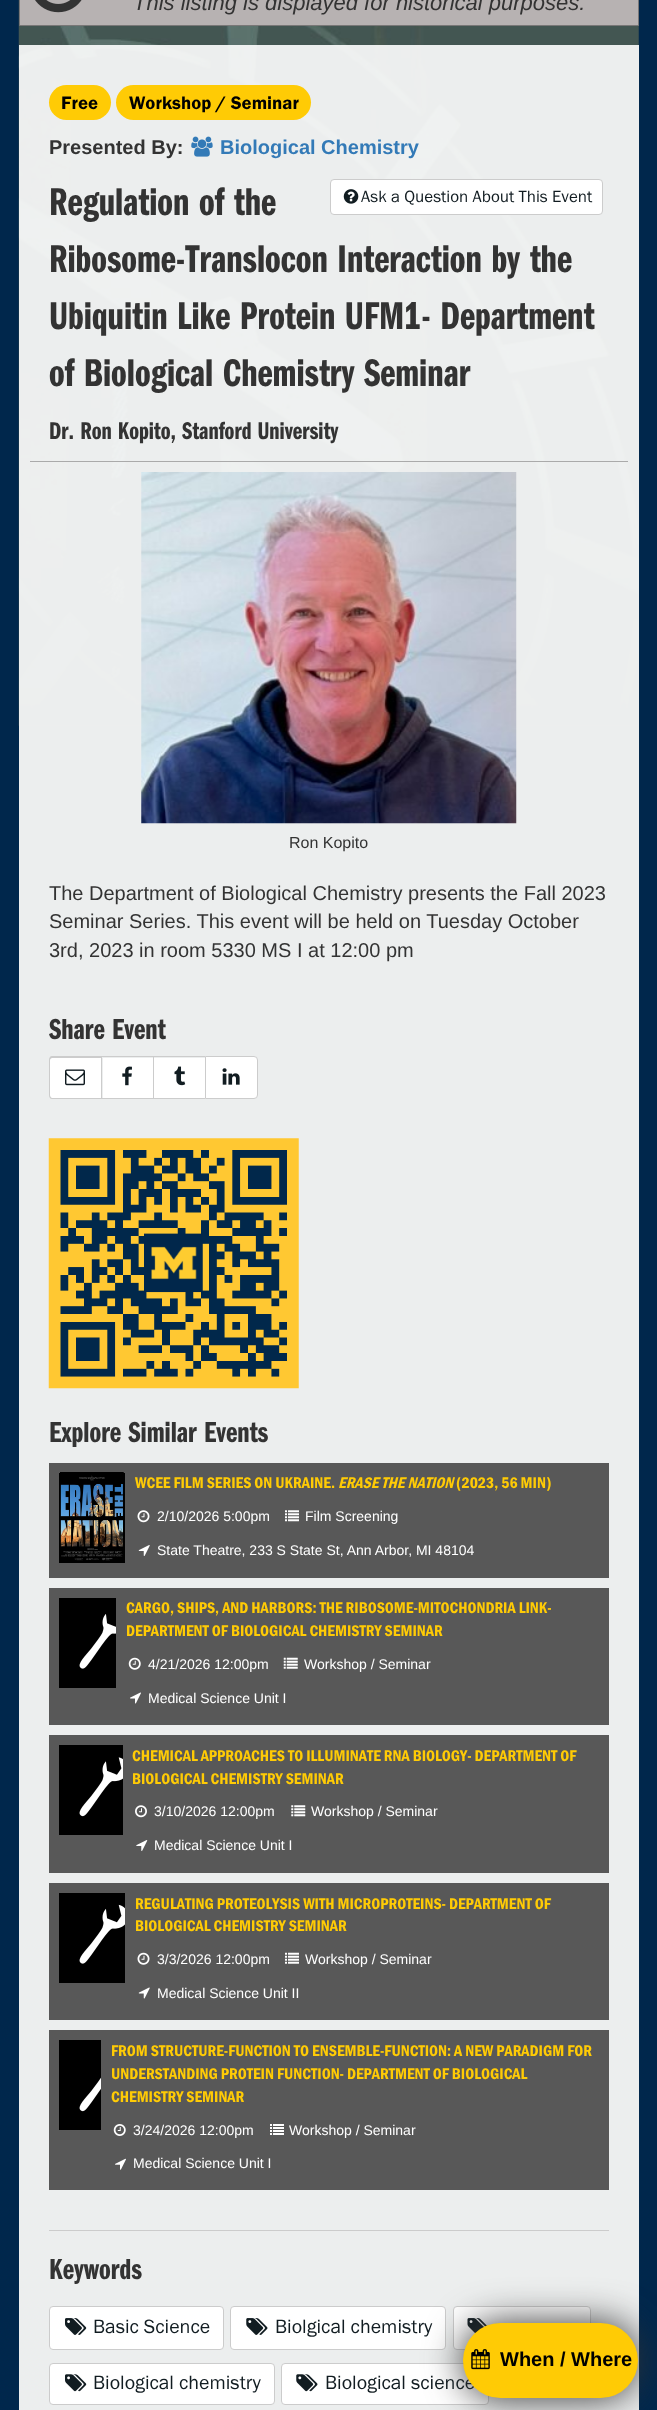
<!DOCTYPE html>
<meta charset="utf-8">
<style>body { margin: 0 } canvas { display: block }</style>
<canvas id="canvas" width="657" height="2410"></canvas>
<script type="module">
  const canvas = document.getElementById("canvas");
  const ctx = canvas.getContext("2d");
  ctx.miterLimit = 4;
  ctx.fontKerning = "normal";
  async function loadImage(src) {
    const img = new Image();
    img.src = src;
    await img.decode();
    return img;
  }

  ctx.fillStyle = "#00274c";
  ctx.fillRect(0, 0, 657, 2410);
  ctx.fillStyle = "#eceeee";
  ctx.fillRect(19, 45, 620, 2365);
  ctx.drawImage(await loadImage("img1.png"), 18, 0, 621, 726);
  ctx.fillStyle = "#b7b2b2";
  ctx.beginPath();
  ctx.rect(19.5, -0.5, 619, 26);
  ctx.fill();
  ctx.strokeStyle = "#797777";
  ctx.stroke();
  ctx.drawImage(await loadImage("img2.png"), 35, 0, 47, 13);
  ctx.font = "italic 22px Liberation Sans";
  ctx.fillStyle = "#333333";
  ctx.fillText("This listing is displayed for historical purposes.", 133, 10);
  ctx.fillStyle = "#aaaaaa";
  ctx.fillRect(30, 461, 598, 1);
  ctx.fillStyle = "#ffcb05";
  ctx.beginPath();
  ctx.roundRect(49, 85, 62, 35, 17.5);
  ctx.fill();
  ctx.font = "18.75px 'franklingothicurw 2'";
  ctx.fillStyle = "#000000";
  ctx.fillText("Free", 61, 109);
  ctx.fillStyle = "#ffcb05";
  ctx.beginPath();
  ctx.roundRect(116, 85, 195, 35, 17.5);
  ctx.fill();
  ctx.fillStyle = "#000000";
  ctx.fillText("Workshop / Seminar", 129, 109);
  ctx.font = "bold 20px Liberation Sans";
  ctx.fillStyle = "#333333";
  ctx.fillText("Presented By:", 49, 154);
  ctx.drawImage(await loadImage("img3.png"), 191, 136, 22, 21);
  ctx.fillStyle = "#337ab7";
  ctx.fillText("Biological Chemistry", 220, 154);
  ctx.font = "600 40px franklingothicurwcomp";
  ctx.fillStyle = "#333333";
  ctx.fillText("Regulation of the", 49, 215);
  ctx.fillStyle = "#ffffff";
  ctx.beginPath();
  ctx.roundRect(330.5, 179.5, 272, 35, 3.5);
  ctx.fill();
  ctx.strokeStyle = "#cccccc";
  ctx.stroke();
  ctx.drawImage(await loadImage("img4.png"), 343, 189, 16, 15);
  ctx.font = "17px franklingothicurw";
  ctx.fillStyle = "#111c21";
  ctx.fillText("Ask a Question About This Event", 361, 202);
  ctx.font = "600 40px franklingothicurwcomp";
  ctx.fillStyle = "#333333";
  ctx.fillText("Ribosome-Translocon Interaction by the", 49, 272);
  ctx.fillText("Ubiquitin Like Protein UFM1- Department", 49, 329);
  ctx.fillText("of Biological Chemistry Seminar", 49, 386);
  ctx.font = "600 25px franklingothicurwcomp";
  ctx.fillText("Dr. Ron Kopito, Stanford University", 49, 439);
  ctx.drawImage(await loadImage("img5.png"), 141, 472, 376, 352);
  ctx.font = "16px Liberation Sans";
  ctx.fillText("Ron Kopito", 289, 848);
  ctx.font = "20px Liberation Sans";
  ctx.fillText("The Department of Biological Chemistry presents the Fall 2023", 49, 900);
  ctx.fillText("Seminar Series. This event will be held on Tuesday October", 49, 928);
  ctx.fillText("3rd, 2023 in room 5330 MS I at 12:00 pm", 49, 957);
  ctx.font = "600 30px franklingothicurwcomp";
  ctx.fillText("Share Event", 49, 1039);
  ctx.fillStyle = "#ffffff";
  ctx.beginPath();
  ctx.roundRect(50, 1058, 51, 40, [2.5, 0, 0, 2.5]);
  ctx.fill();
  ctx.fillStyle = "#cccccc";
  ctx.beginPath();
  ctx.moveTo(52, 1056);
  ctx.lineTo(101, 1056);
  ctx.lineTo(101, 1099);
  ctx.lineTo(52, 1099);
  ctx.bezierCurveTo(50, 1099, 49, 1097, 49, 1095);
  ctx.lineTo(49, 1060);
  ctx.bezierCurveTo(49, 1058, 50, 1056, 52, 1056);
  ctx.closePath();
  ctx.moveTo(52, 1058);
  ctx.lineTo(101, 1058);
  ctx.lineTo(101, 1098);
  ctx.lineTo(52, 1098);
  ctx.bezierCurveTo(51, 1098, 50, 1096, 50, 1095);
  ctx.lineTo(50, 1060);
  ctx.bezierCurveTo(50, 1059, 51, 1058, 52, 1058);
  ctx.closePath();
  ctx.fill("evenodd");
  ctx.drawImage(await loadImage("img6.png"), 65, 1069, 20, 17);
  ctx.fillStyle = "#ffffff";
  ctx.fillRect(103, 1058, 50, 40);
  ctx.fillStyle = "#cccccc";
  ctx.fillRect(101, 1056, 104, 1);
  ctx.fillRect(101, 1098, 104, 1);
  ctx.fillRect(101, 1056, 1, 43);
  ctx.drawImage(await loadImage("img7.png"), 122, 1066, 10, 20);
  ctx.fillStyle = "#ffffff";
  ctx.fillRect(154, 1058, 51, 40);
  ctx.fillStyle = "#cccccc";
  ctx.fillRect(153, 1056, 1, 43);
  ctx.drawImage(await loadImage("img8.png"), 174, 1066, 12, 20);
  ctx.fillStyle = "#ffffff";
  ctx.beginPath();
  ctx.roundRect(205.5, 1056.5, 52, 42, [0, 3.5, 3.5, 0]);
  ctx.fill();
  ctx.stroke();
  ctx.drawImage(await loadImage("img9.png"), 222, 1068, 18, 17);
  ctx.drawImage(await loadImage("img10.png"), 48, 1138, 251, 251);
  ctx.fillStyle = "#333333";
  ctx.fillText("Explore Similar Events", 49, 1442);
  ctx.fillStyle = "#585858";
  ctx.fillRect(49, 1463, 560, 115);
  ctx.fillStyle = "#000000";
  ctx.fillRect(59, 1473, 66, 90);
  ctx.drawImage(await loadImage("img11.png"), 60, 1472, 64, 89);
  ctx.font = "16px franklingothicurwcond";
  ctx.fillStyle = "#ffcb05";
  ctx.fillText("WCEE FILM SERIES ON UKRAINE.", 135, 1488);
  ctx.font = "italic 16px franklingothicurwcond";
  ctx.fillText("ERASE THE NATION", 338, 1488);
  ctx.font = "16px franklingothicurwcond";
  ctx.fillText("(2023, 56 MIN)", 456, 1488);
  ctx.drawImage(await loadImage("img12.png"), 137, 1510, 13, 13);
  ctx.font = "14px Liberation Sans";
  ctx.fillStyle = "#ffffff";
  ctx.fillText("2/10/2026 5:00pm", 157, 1521);
  ctx.drawImage(await loadImage("img13.png"), 285, 1510, 14, 12);
  ctx.fillText("Film Screening", 305, 1521);
  ctx.drawImage(await loadImage("img14.png"), 138, 1545, 12, 11);
  ctx.fillText("State Theatre, 233 S State St, Ann Arbor, MI 48104", 157, 1555);
  ctx.fillStyle = "#585858";
  ctx.fillRect(49, 1588, 560, 137);
  ctx.fillStyle = "#000000";
  ctx.fillRect(59, 1598, 57, 90);
  ctx.drawImage(await loadImage("img15.png"), 79, 1614, 37, 55);
  ctx.font = "16px franklingothicurwcond";
  ctx.fillStyle = "#ffcb05";
  ctx.fillText("CARGO, SHIPS, AND HARBORS: THE RIBOSOME-MITOCHONDRIA LINK-", 126, 1613);
  ctx.fillText("DEPARTMENT OF BIOLOGICAL CHEMISTRY SEMINAR", 126, 1636);
  ctx.drawImage(await loadImage("img16.png"), 128, 1657, 13, 13);
  ctx.font = "14px Liberation Sans";
  ctx.fillStyle = "#ffffff";
  ctx.fillText("4/21/2026 12:00pm", 148, 1669);
  ctx.drawImage(await loadImage("img17.png"), 283, 1657, 15, 12);
  ctx.fillText("Workshop / Seminar", 304, 1669);
  ctx.drawImage(await loadImage("img18.png"), 130, 1692, 11, 12);
  ctx.fillText("Medical Science Unit I", 148, 1703);
  ctx.fillStyle = "#585858";
  ctx.fillRect(49, 1735, 560, 138);
  ctx.fillStyle = "#000000";
  ctx.fillRect(59, 1745, 64, 90);
  ctx.drawImage(await loadImage("img19.png"), 79, 1757, 44, 60);
  ctx.font = "16px franklingothicurwcond";
  ctx.fillStyle = "#ffcb05";
  ctx.fillText("CHEMICAL APPROACHES TO ILLUMINATE RNA BIOLOGY- DEPARTMENT OF", 132, 1761);
  ctx.fillText("BIOLOGICAL CHEMISTRY SEMINAR", 132, 1784);
  ctx.drawImage(await loadImage("img20.png"), 135, 1805, 12, 13);
  ctx.font = "14px Liberation Sans";
  ctx.fillStyle = "#ffffff";
  ctx.fillText("3/10/2026 12:00pm", 154, 1816);
  ctx.drawImage(await loadImage("img21.png"), 291, 1805, 15, 12);
  ctx.fillText("Workshop / Seminar", 311, 1816);
  ctx.drawImage(await loadImage("img22.png"), 136, 1840, 12, 11);
  ctx.fillText("Medical Science Unit I", 154, 1850);
  ctx.fillStyle = "#585858";
  ctx.fillRect(49, 1883, 560, 137);
  ctx.fillStyle = "#000000";
  ctx.fillRect(59, 1893, 66, 90);
  ctx.drawImage(await loadImage("img23.png"), 79, 1904, 46, 60);
  ctx.font = "16px franklingothicurwcond";
  ctx.fillStyle = "#ffcb05";
  ctx.fillText("REGULATING PROTEOLYSIS WITH MICROPROTEINS- DEPARTMENT OF", 135, 1909);
  ctx.fillText("BIOLOGICAL CHEMISTRY SEMINAR", 135, 1931);
  ctx.drawImage(await loadImage("img24.png"), 137, 1952, 13, 13);
  ctx.font = "14px Liberation Sans";
  ctx.fillStyle = "#ffffff";
  ctx.fillText("3/3/2026 12:00pm", 157, 1964);
  ctx.drawImage(await loadImage("img25.png"), 285, 1952, 14, 12);
  ctx.fillText("Workshop / Seminar", 305, 1964);
  ctx.drawImage(await loadImage("img26.png"), 138, 1987, 12, 12);
  ctx.fillText("Medical Science Unit II", 157, 1998);
  ctx.fillStyle = "#585858";
  ctx.fillRect(49, 2030, 560, 160);
  ctx.fillStyle = "#000000";
  ctx.fillRect(59, 2040, 42, 90);
  ctx.drawImage(await loadImage("img27.png"), 79, 2077, 22, 35);
  ctx.font = "16px franklingothicurwcond";
  ctx.fillStyle = "#ffcb05";
  ctx.fillText("FROM STRUCTURE-FUNCTION TO ENSEMBLE-FUNCTION: A NEW PARADIGM FOR", 111, 2056);
  ctx.fillText("UNDERSTANDING PROTEIN FUNCTION- DEPARTMENT OF BIOLOGICAL", 111, 2079);
  ctx.fillText("CHEMISTRY SEMINAR", 111, 2102);
  ctx.drawImage(await loadImage("img28.png"), 113, 2124, 13, 12);
  ctx.font = "14px Liberation Sans";
  ctx.fillStyle = "#ffffff";
  ctx.fillText("3/24/2026 12:00pm", 133, 2135);
  ctx.drawImage(await loadImage("img29.png"), 270, 2124, 14, 11);
  ctx.fillText("Workshop / Seminar", 289, 2135);
  ctx.drawImage(await loadImage("img30.png"), 115, 2158, 11, 12);
  ctx.fillText("Medical Science Unit I", 133, 2168);
  ctx.fillStyle = "#cccccc";
  ctx.fillRect(49, 2230, 560, 1);
  ctx.font = "600 30px franklingothicurwcomp";
  ctx.fillStyle = "#333333";
  ctx.fillText("Keywords", 49, 2279);
  ctx.fillStyle = "#ffffff";
  ctx.beginPath();
  ctx.roundRect(49.5, 2306.5, 174, 43, 3.5);
  ctx.fill();
  ctx.stroke();
  ctx.drawImage(await loadImage("img31.png"), 65, 2318, 22, 17);
  ctx.font = "20px franklingothicurw";
  ctx.fillStyle = "#111c21";
  ctx.fillText("Basic Science", 93, 2333);
  ctx.fillStyle = "#ffffff";
  ctx.beginPath();
  ctx.roundRect(230.5, 2306.5, 215, 43, 3.5);
  ctx.fill();
  ctx.stroke();
  ctx.drawImage(await loadImage("img32.png"), 246, 2318, 22, 17);
  ctx.fillStyle = "#111c21";
  ctx.fillText("Biolgical chemistry", 275, 2333);
  ctx.fillStyle = "#ffffff";
  ctx.beginPath();
  ctx.roundRect(453.5, 2306.5, 137, 43, 3.5);
  ctx.fill();
  ctx.stroke();
  ctx.drawImage(await loadImage("img33.png"), 467, 2318, 21, 15);
  ctx.beginPath();
  ctx.roundRect(49.5, 2363.5, 225, 41, 3.5);
  ctx.fill();
  ctx.stroke();
  ctx.drawImage(await loadImage("img34.png"), 65, 2374, 22, 18);
  ctx.fillStyle = "#111c21";
  ctx.fillText("Biological chemistry", 93, 2389);
  ctx.fillStyle = "#ffffff";
  ctx.beginPath();
  ctx.roundRect(281.5, 2363.5, 207, 41, 3.5);
  ctx.fill();
  ctx.stroke();
  ctx.drawImage(await loadImage("img35.png"), 296, 2374, 22, 18);
  ctx.fillStyle = "#111c21";
  ctx.fillText("Biological science", 325, 2389);
  ctx.fillStyle = "#333333";
  ctx.filter = "blur(19px)";
  ctx.beginPath();
  ctx.roundRect(463, 2323, 175, 75, 37.5);
  ctx.fill();
  ctx.filter = "none";
  ctx.fillStyle = "#ffcb05";
  ctx.beginPath();
  ctx.roundRect(463, 2323, 175, 75, 37.5);
  ctx.fill();
  ctx.drawImage(await loadImage("img36.png"), 471, 2349, 19, 21);
  ctx.font = "bold 20px Liberation Sans";
  ctx.fillStyle = "#000000";
  ctx.fillText("When / Where", 500, 2366);
</script>
